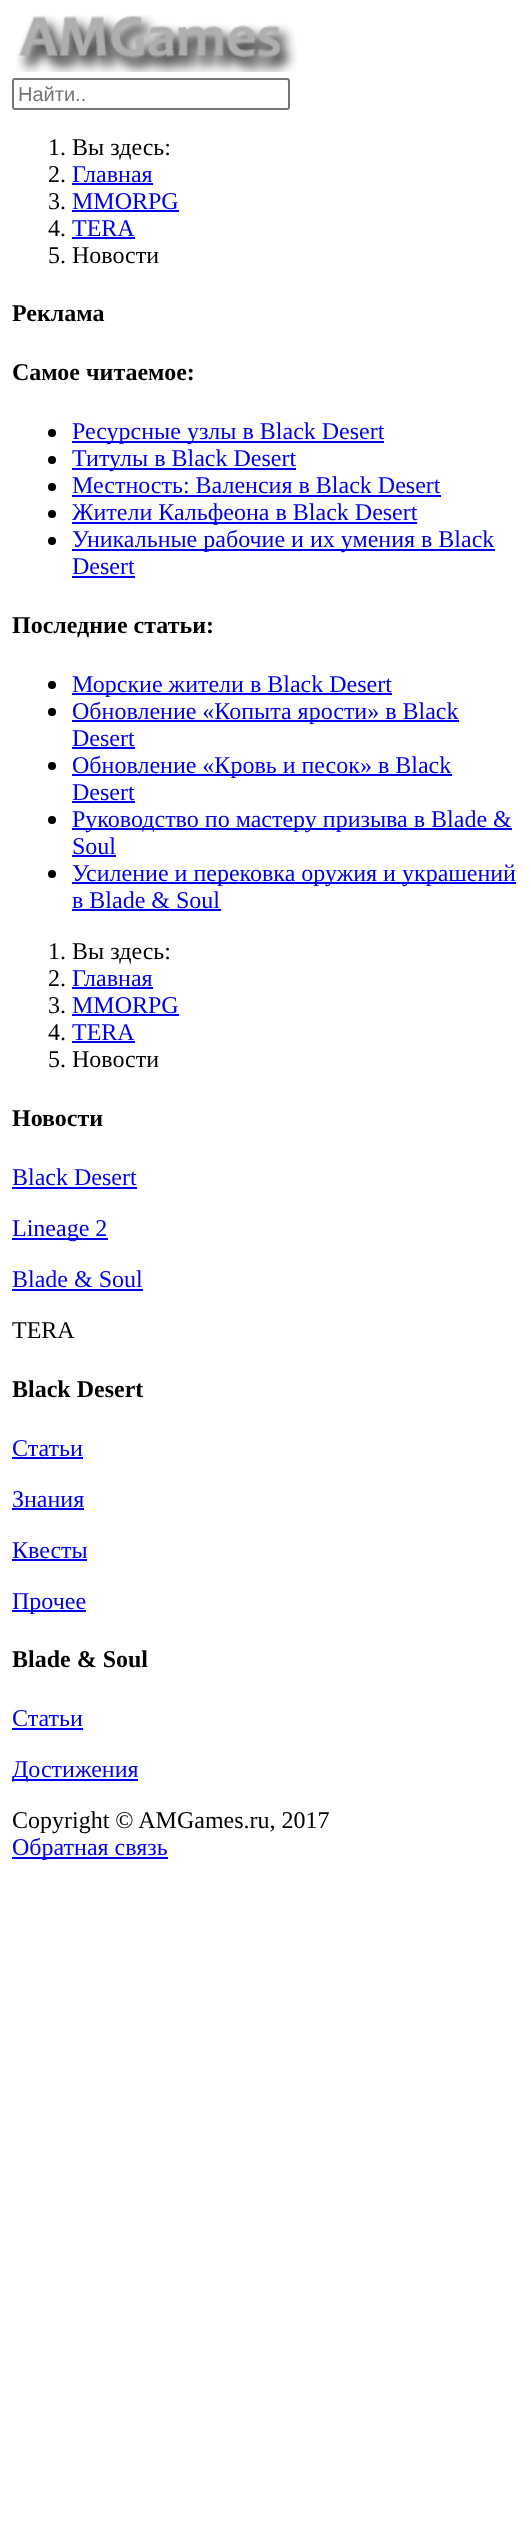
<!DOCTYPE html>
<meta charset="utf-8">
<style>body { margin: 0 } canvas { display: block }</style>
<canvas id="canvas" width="531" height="2543"></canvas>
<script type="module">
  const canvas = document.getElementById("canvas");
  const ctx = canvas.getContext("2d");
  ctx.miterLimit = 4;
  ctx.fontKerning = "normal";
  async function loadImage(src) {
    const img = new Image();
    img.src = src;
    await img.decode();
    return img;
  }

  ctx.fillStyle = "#ffffff";
  ctx.fillRect(0, 0, 531, 2543);
  ctx.drawImage(await loadImage("img1.png"), 16, 15, 281, 57);
  ctx.beginPath();
  ctx.roundRect(13, 79, 276, 30, 2);
  ctx.strokeStyle = "#767676";
  ctx.lineWidth = 2;
  ctx.stroke();
  ctx.font = "20px Liberation Sans";
  ctx.fillStyle = "#757575";
  ctx.fillText("Найти..", 18, 101);
  ctx.font = "24px Liberation Serif";
  ctx.fillStyle = "#000000";
  ctx.fillText("1. Вы здесь:", 48, 155);
  ctx.fillText("2.", 48, 182);
  ctx.fillStyle = "#0000ee";
  ctx.fillText("Главная", 72, 182);
  ctx.fillRect(72, 183, 81, 2);
  ctx.fillStyle = "#000000";
  ctx.fillText("3.", 48, 209);
  ctx.fillStyle = "#0000ee";
  ctx.fillText("MMORPG", 72, 209);
  ctx.fillRect(72, 210, 107, 2);
  ctx.fillStyle = "#000000";
  ctx.fillText("4.", 48, 236);
  ctx.fillStyle = "#0000ee";
  ctx.fillText("TERA", 72, 236);
  ctx.fillRect(72, 237, 63, 2);
  ctx.fillStyle = "#000000";
  ctx.fillText("5. Новости", 48, 263);
  ctx.font = "bold 24px Liberation Serif";
  ctx.fillText("Реклама", 12, 321);
  ctx.fillText("Самое читаемое:", 12, 380);
  ctx.beginPath();
  ctx.arc(52, 433, 4, 0, Math.PI * 2);
  ctx.fill();
  ctx.fillStyle = "#0000ee";
  ctx.fillRect(72, 441, 312, 2);
  ctx.font = "24px Liberation Serif";
  ctx.fillText("Ресурсные узлы в Black Desert", 72, 439);
  ctx.fillStyle = "#000000";
  ctx.beginPath();
  ctx.arc(52, 460, 4, 0, Math.PI * 2);
  ctx.fill();
  ctx.fillStyle = "#0000ee";
  ctx.fillRect(72, 468, 224, 2);
  ctx.fillText("Титулы в Black Desert", 72, 466);
  ctx.fillStyle = "#000000";
  ctx.beginPath();
  ctx.arc(52, 487, 4, 0, Math.PI * 2);
  ctx.fill();
  ctx.fillStyle = "#0000ee";
  ctx.fillText("Местность: Валенсия в Black Desert", 72, 493);
  ctx.fillRect(72, 495, 369, 2);
  ctx.fillStyle = "#000000";
  ctx.beginPath();
  ctx.arc(52, 514, 4, 0, Math.PI * 2);
  ctx.fill();
  ctx.fillStyle = "#0000ee";
  ctx.fillRect(72, 522, 345, 2);
  ctx.fillText("Жители Кальфеона в Black Desert", 72, 520);
  ctx.fillStyle = "#000000";
  ctx.beginPath();
  ctx.arc(52, 541, 4, 0, Math.PI * 2);
  ctx.fill();
  ctx.fillStyle = "#0000ee";
  ctx.fillRect(72, 549, 423, 2);
  ctx.fillText("Уникальные рабочие и их умения в Black", 72, 547);
  ctx.fillText("Desert", 72, 574);
  ctx.fillRect(72, 576, 63, 2);
  ctx.font = "bold 24px Liberation Serif";
  ctx.fillStyle = "#000000";
  ctx.fillText("Последние статьи:", 12, 633);
  ctx.beginPath();
  ctx.arc(52, 685, 4, 0, Math.PI * 2);
  ctx.fill();
  ctx.fillStyle = "#0000ee";
  ctx.fillRect(72, 693, 320, 2);
  ctx.font = "24px Liberation Serif";
  ctx.fillText("Морские жители в Black Desert", 72, 692);
  ctx.fillStyle = "#000000";
  ctx.beginPath();
  ctx.arc(52, 712, 4, 0, Math.PI * 2);
  ctx.fill();
  ctx.fillStyle = "#0000ee";
  ctx.fillRect(72, 720, 387, 2);
  ctx.fillText("Обновление «Копыта ярости» в Black", 72, 719);
  ctx.fillText("Desert", 72, 746);
  ctx.fillRect(72, 747, 63, 2);
  ctx.fillStyle = "#000000";
  ctx.beginPath();
  ctx.arc(52, 766, 4, 0, Math.PI * 2);
  ctx.fill();
  ctx.fillStyle = "#0000ee";
  ctx.fillRect(72, 774, 380, 2);
  ctx.fillText("Обновление «Кровь и песок» в Black", 72, 773);
  ctx.fillText("Desert", 72, 800);
  ctx.fillRect(72, 801, 63, 2);
  ctx.fillStyle = "#000000";
  ctx.beginPath();
  ctx.arc(52, 820, 4, 0, Math.PI * 2);
  ctx.fill();
  ctx.fillStyle = "#0000ee";
  ctx.fillRect(72, 828, 440, 2);
  ctx.fillText("Руководство по мастеру призыва в Blade &", 72, 827);
  ctx.fillText("Soul", 72, 854);
  ctx.fillRect(72, 855, 44, 2);
  ctx.fillStyle = "#000000";
  ctx.beginPath();
  ctx.arc(52, 874, 4, 0, Math.PI * 2);
  ctx.fill();
  ctx.fillStyle = "#0000ee";
  ctx.fillRect(72, 882, 444, 2);
  ctx.fillText("Усиление и перековка оружия и украшений", 72, 881);
  ctx.fillText("в Blade & Soul", 72, 908);
  ctx.fillRect(72, 909, 149, 2);
  ctx.fillStyle = "#000000";
  ctx.fillText("1. Вы здесь:", 48, 959);
  ctx.fillText("2.", 48, 986);
  ctx.fillStyle = "#0000ee";
  ctx.fillText("Главная", 72, 986);
  ctx.fillRect(72, 987, 81, 2);
  ctx.fillStyle = "#000000";
  ctx.fillText("3.", 48, 1013);
  ctx.fillStyle = "#0000ee";
  ctx.fillText("MMORPG", 72, 1013);
  ctx.fillRect(72, 1014, 107, 2);
  ctx.fillStyle = "#000000";
  ctx.fillText("4.", 48, 1040);
  ctx.fillStyle = "#0000ee";
  ctx.fillText("TERA", 72, 1040);
  ctx.fillRect(72, 1041, 63, 2);
  ctx.fillStyle = "#000000";
  ctx.fillText("5. Новости", 48, 1067);
  ctx.font = "bold 24px Liberation Serif";
  ctx.fillText("Новости", 12, 1126);
  ctx.font = "24px Liberation Serif";
  ctx.fillStyle = "#0000ee";
  ctx.fillText("Black Desert", 12, 1185);
  ctx.fillRect(12, 1187, 125, 2);
  ctx.fillRect(12, 1238, 96, 2);
  ctx.fillText("Lineage 2", 12, 1236);
  ctx.fillText("Blade & Soul", 12, 1287);
  ctx.fillRect(12, 1289, 131, 2);
  ctx.fillStyle = "#000000";
  ctx.fillText("TERA", 12, 1338);
  ctx.font = "bold 24px Liberation Serif";
  ctx.fillText("Black Desert", 12, 1397);
  ctx.font = "24px Liberation Serif";
  ctx.fillStyle = "#0000ee";
  ctx.fillText("Статьи", 12, 1456);
  ctx.fillRect(12, 1457, 71, 2);
  ctx.fillText("Знания", 12, 1507);
  ctx.fillRect(12, 1508, 72, 2);
  ctx.fillText("Квесты", 12, 1558);
  ctx.fillRect(12, 1559, 75, 2);
  ctx.fillRect(12, 1610, 74, 2);
  ctx.fillText("Прочее", 12, 1609);
  ctx.font = "bold 24px Liberation Serif";
  ctx.fillStyle = "#000000";
  ctx.fillText("Blade & Soul", 12, 1667);
  ctx.font = "24px Liberation Serif";
  ctx.fillStyle = "#0000ee";
  ctx.fillText("Статьи", 12, 1726);
  ctx.fillRect(12, 1728, 71, 2);
  ctx.fillRect(12, 1779, 126, 2);
  ctx.fillText("Достижения", 12, 1777);
  ctx.fillStyle = "#000000";
  ctx.fillText("Copyright © AMGames.ru, 2017", 12, 1828);
  ctx.fillStyle = "#0000ee";
  ctx.fillRect(12, 1857, 156, 2);
  ctx.fillText("Обратная связь", 12, 1855);
</script>
